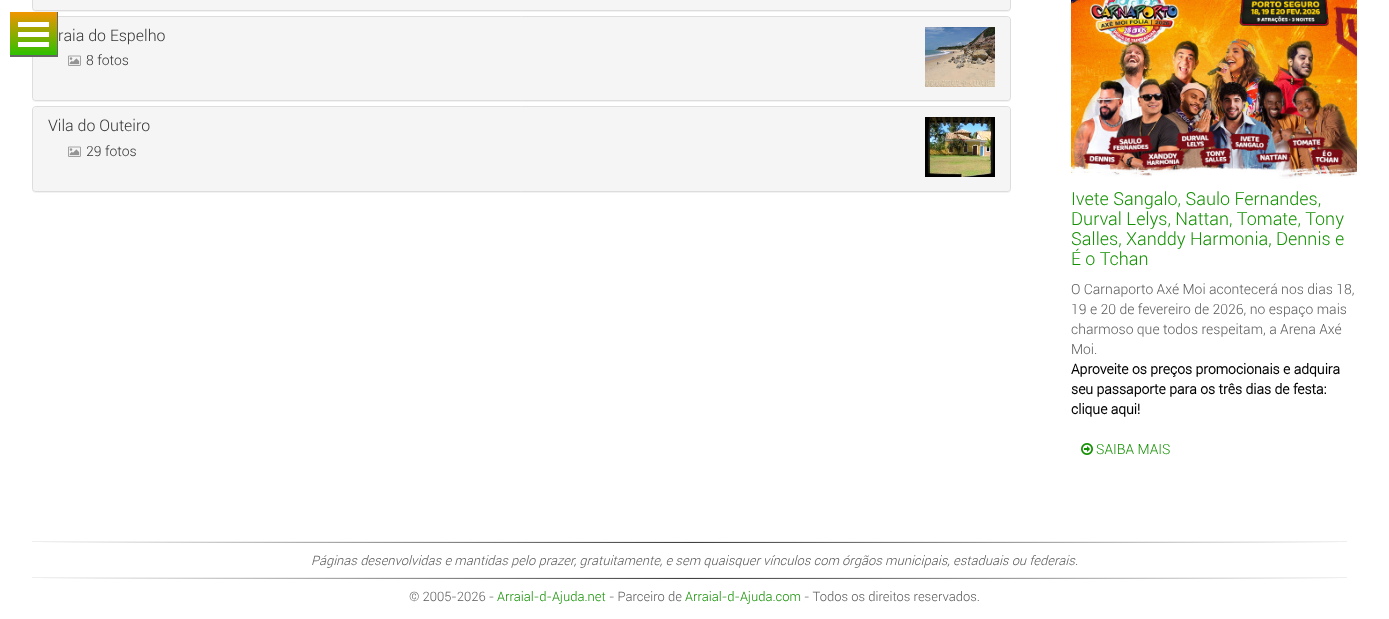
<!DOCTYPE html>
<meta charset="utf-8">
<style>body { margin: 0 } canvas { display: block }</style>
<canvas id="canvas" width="1389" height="619"></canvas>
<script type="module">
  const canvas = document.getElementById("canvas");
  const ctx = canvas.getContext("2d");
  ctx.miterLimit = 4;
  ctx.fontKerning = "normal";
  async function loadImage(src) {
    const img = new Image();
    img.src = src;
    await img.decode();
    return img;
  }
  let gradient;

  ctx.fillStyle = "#ffffff";
  ctx.fillRect(0, 0, 1389, 619);
  ctx.fillStyle = "rgba(0, 0, 0, 0.05)";
  ctx.filter = "blur(0.5px)";
  ctx.beginPath();
  ctx.roundRect(32, -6, 979, 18, 4);
  ctx.fill();
  ctx.filter = "none";
  ctx.filter = "blur(0.5px)";
  ctx.beginPath();
  ctx.roundRect(32, 17, 979, 85, 4);
  ctx.fill();
  ctx.filter = "none";
  ctx.beginPath();
  ctx.roundRect(32.5, 16.5, 978, 84, 3.5);
  ctx.strokeStyle = "#dddddd";
  ctx.stroke();
  ctx.fillStyle = "#f5f5f5";
  ctx.beginPath();
  ctx.roundRect(33, 17, 977, 83, 3);
  ctx.fill();
  gradient = ctx.createLinearGradient(34, 12, 34, 55);
  gradient.addColorStop(0, "#f29500");
  gradient.addColorStop(1, "#2dc100");
  ctx.fillStyle = gradient;
  ctx.fillRect(10, 12, 47, 43);
  ctx.fillStyle = "#656565";
  ctx.fillRect(57, 12, 1, 45);
  ctx.fillRect(10, 55, 48, 2);
  ctx.fillStyle = "#ffffff";
  ctx.fillRect(18, 42, 31, 5);
  ctx.fillRect(18, 32, 31, 5);
  ctx.fillRect(18, 22, 31, 5);
  ctx.beginPath();
  ctx.roundRect(32.5, -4.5, 978, 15, 3.5);
  ctx.stroke();
  ctx.fillStyle = "#f5f5f5";
  ctx.beginPath();
  ctx.roundRect(33, -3, 977, 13, 3);
  ctx.fill();
  ctx.font = "300 16px Roboto";
  ctx.fillStyle = "#333333";
  ctx.fillText("raia do Espelho", 58, 41);
  ctx.drawImage(await loadImage("img1.png"), 925, 27, 70, 60);
  ctx.drawImage(await loadImage("img2.png"), 68, 55, 13, 11);
  ctx.font = "300 14px Roboto";
  ctx.fillText("8 fotos", 86, 65);
  ctx.fillStyle = "rgba(0, 0, 0, 0.05)";
  ctx.filter = "blur(0.5px)";
  ctx.beginPath();
  ctx.roundRect(32, 107, 979, 86, 4);
  ctx.fill();
  ctx.filter = "none";
  ctx.beginPath();
  ctx.roundRect(32.5, 106.5, 978, 85, 3.5);
  ctx.stroke();
  ctx.fillStyle = "#f5f5f5";
  ctx.beginPath();
  ctx.roundRect(33, 107, 977, 84, 3);
  ctx.fill();
  ctx.font = "300 16px Roboto";
  ctx.fillStyle = "#333333";
  ctx.fillText("Vila do Outeiro", 48, 131);
  ctx.drawImage(await loadImage("img3.png"), 925, 117, 70, 60);
  ctx.drawImage(await loadImage("img2.png"), 68, 146, 13, 11);
  ctx.font = "300 14px Roboto";
  ctx.fillText("29 fotos", 86, 156);
  ctx.drawImage(await loadImage("img4.png"), 1071, 0, 286, 179);
  ctx.font = "300 18px Roboto";
  ctx.fillStyle = "#149103";
  ctx.fillText("Ivete Sangalo, Saulo Fernandes,", 1071, 205);
  ctx.fillText("Durval Lelys, Nattan, Tomate, Tony", 1071, 225);
  ctx.fillText("Salles, Xanddy Harmonia, Dennis e", 1071, 245);
  ctx.fillText("É o Tchan", 1071, 265);
  ctx.font = "300 14px Roboto";
  ctx.fillStyle = "#5a5a5a";
  ctx.fillText("O Carnaporto Axé Moi acontecerá nos dias 18,", 1071, 294);
  ctx.fillText("19 e 20 de fevereiro de 2026, no espaço mais", 1071, 314);
  ctx.fillText("charmoso que todos respeitam, a Arena Axé", 1071, 334);
  ctx.fillText("Moi.", 1071, 354);
  ctx.font = "bold 14px Roboto";
  ctx.fillStyle = "#000000";
  ctx.fillText("Aproveite os preços promocionais e adquira", 1071, 374);
  ctx.fillText("seu passaporte para os três dias de festa:", 1071, 394);
  ctx.fillText("clique aqui!", 1071, 414);
  ctx.drawImage(await loadImage("img5.png"), 1081, 443, 12, 12);
  ctx.font = "300 14px Roboto";
  ctx.fillStyle = "#149103";
  ctx.fillText("SAIBA MAIS", 1096, 454);
  gradient = ctx.createLinearGradient(32, 543, 1347, 543);
  gradient.addColorStop(0, "#ffffff");
  gradient.addColorStop(0.5, "#404040");
  gradient.addColorStop(1, "#ffffff");
  ctx.fillStyle = gradient;
  ctx.fillRect(41, 542, 1297, 1);
  ctx.fillStyle = "#eeeeee";
  ctx.fillRect(32, 541, 1315, 1);
  ctx.font = "italic 300 13px Roboto";
  ctx.fillStyle = "#5a5a5a";
  ctx.fillText("Páginas desenvolvidas e mantidas pelo prazer, gratuitamente, e sem quaisquer vínculos com órgãos municipais, estaduais ou federais.", 311, 565);
  gradient = ctx.createLinearGradient(32, 579, 1347, 579);
  gradient.addColorStop(0, "#ffffff");
  gradient.addColorStop(0.5, "#404040");
  gradient.addColorStop(1, "#ffffff");
  ctx.fillStyle = gradient;
  ctx.fillRect(41, 578, 1297, 1);
  ctx.fillStyle = "#eeeeee";
  ctx.fillRect(32, 577, 1315, 1);
  ctx.font = "300 13px Roboto";
  ctx.fillStyle = "#5a5a5a";
  ctx.fillText("© 2005-2026 -", 409, 601);
  ctx.fillStyle = "#149103";
  ctx.fillText("Arraial-d-Ajuda.net", 497, 601);
  ctx.fillStyle = "#5a5a5a";
  ctx.fillText("- Parceiro de", 609, 601);
  ctx.fillStyle = "#149103";
  ctx.fillText("Arraial-d-Ajuda.com", 685, 601);
  ctx.fillStyle = "#5a5a5a";
  ctx.fillText("- Todos os direitos reservados.", 804, 601);
</script>
